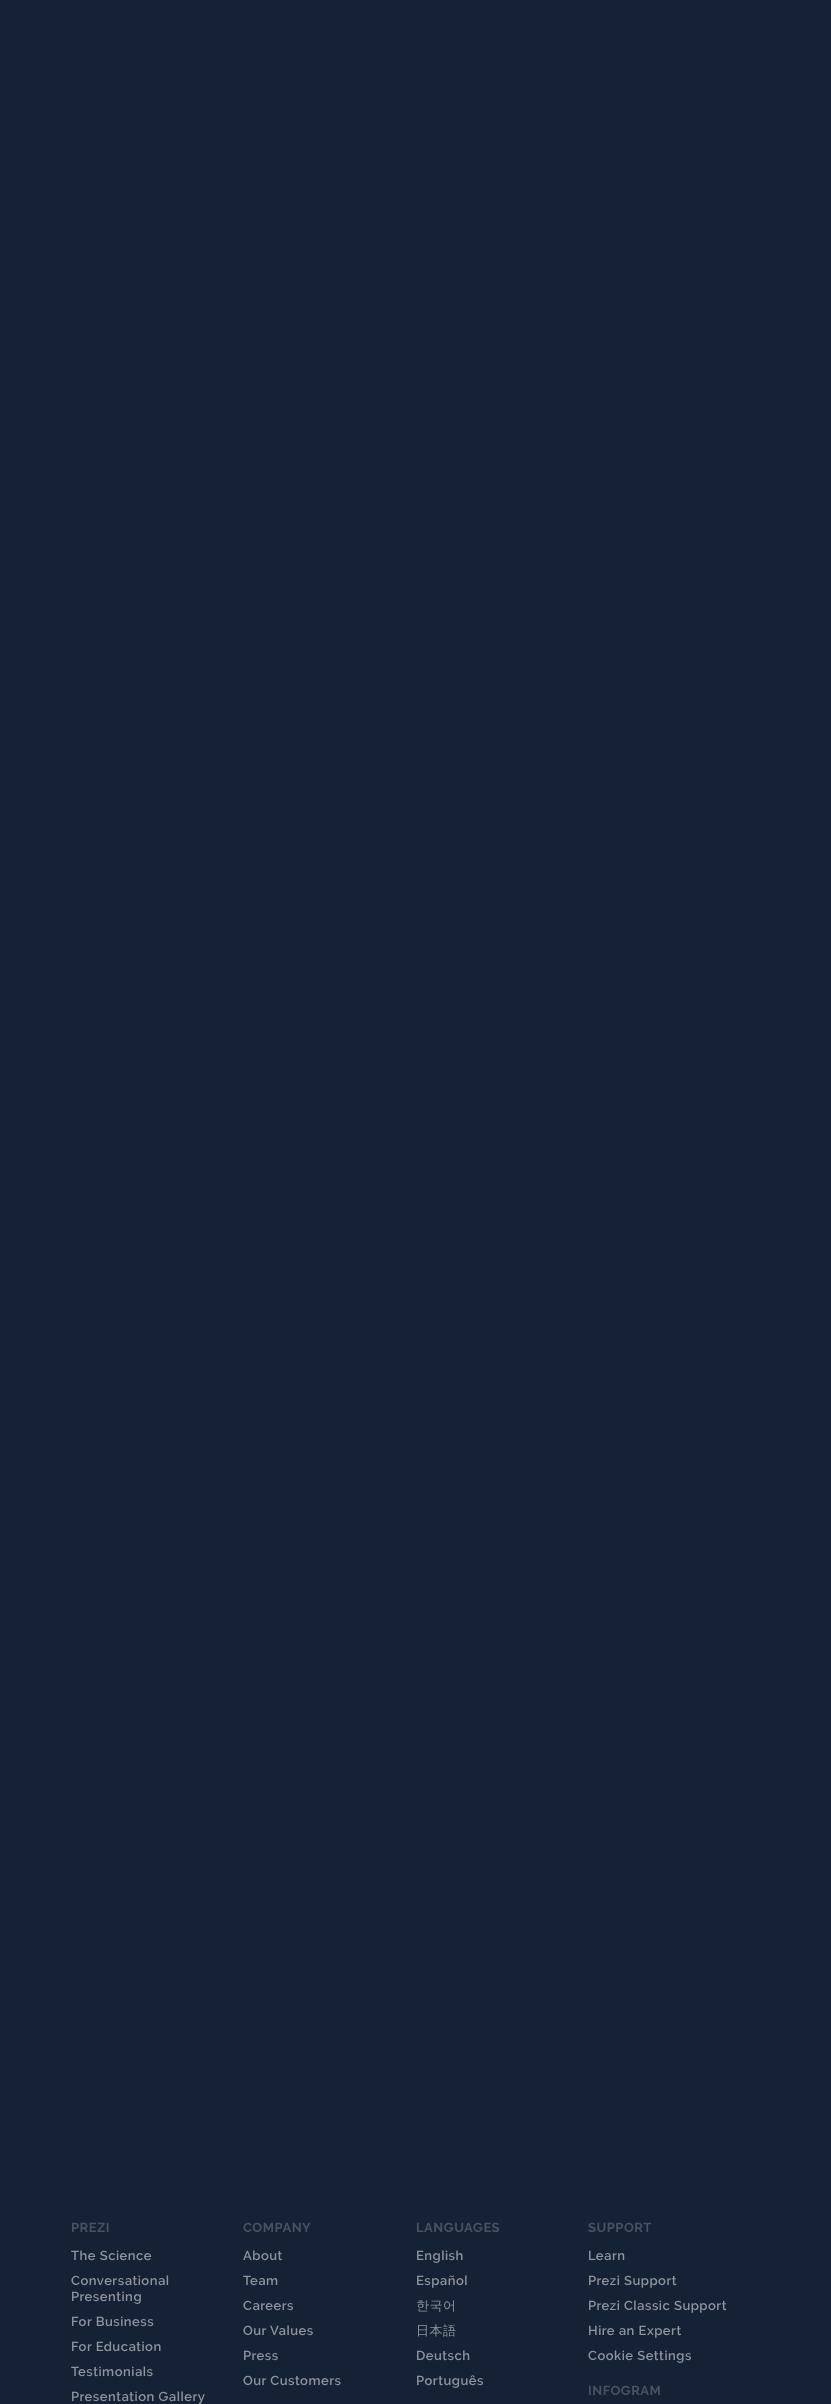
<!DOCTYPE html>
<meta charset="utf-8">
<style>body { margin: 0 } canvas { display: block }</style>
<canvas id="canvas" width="831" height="2404"></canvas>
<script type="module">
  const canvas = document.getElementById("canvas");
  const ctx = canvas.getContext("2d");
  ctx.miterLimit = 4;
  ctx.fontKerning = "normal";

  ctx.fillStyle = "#152235";
  ctx.fillRect(0, 0, 831, 2404);
  ctx.letterSpacing = "0.5px";
  ctx.font = "bold 13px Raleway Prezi";
  ctx.fillStyle = "#475262";
  ctx.fillText("PREZI", 71, 2232);
  ctx.font = "600 13px Raleway Prezi";
  ctx.fillStyle = "#8e939c";
  ctx.fillText("The Science", 71, 2260);
  ctx.fillText("Conversational", 71, 2285);
  ctx.fillText("Presenting", 71, 2301);
  ctx.fillText("For Business", 71, 2326);
  ctx.fillText("For Education", 71, 2351);
  ctx.fillText("Testimonials", 71, 2376);
  ctx.fillText("Presentation Gallery", 71, 2401);
  ctx.font = "bold 13px Raleway Prezi";
  ctx.fillStyle = "#475262";
  ctx.fillText("COMPANY", 243, 2232);
  ctx.font = "600 13px Raleway Prezi";
  ctx.fillStyle = "#8e939c";
  ctx.fillText("About", 243, 2260);
  ctx.fillText("Team", 243, 2285);
  ctx.fillText("Careers", 243, 2310);
  ctx.fillText("Our Values", 243, 2335);
  ctx.fillText("Press", 243, 2360);
  ctx.fillText("Our Customers", 243, 2385);
  ctx.font = "bold 13px Raleway Prezi";
  ctx.fillStyle = "#475262";
  ctx.fillText("LANGUAGES", 416, 2232);
  ctx.font = "600 13px Raleway Prezi";
  ctx.fillStyle = "#8e939c";
  ctx.fillText("English", 416, 2260);
  ctx.fillText("Español", 416, 2285);
  ctx.font = "500 13px WenQuanYi Zen Hei";
  ctx.fillText("한국어", 416, 2310);
  ctx.fillText("日本語", 416, 2335);
  ctx.font = "600 13px Raleway Prezi";
  ctx.fillText("Deutsch", 416, 2360);
  ctx.fillText("Português", 416, 2385);
  ctx.font = "bold 13px Raleway Prezi";
  ctx.fillStyle = "#475262";
  ctx.fillText("SUPPORT", 588, 2232);
  ctx.font = "600 13px Raleway Prezi";
  ctx.fillStyle = "#8e939c";
  ctx.fillText("Learn", 588, 2260);
  ctx.fillText("Prezi Support", 588, 2285);
  ctx.fillText("Prezi Classic Support", 588, 2310);
  ctx.fillText("Hire an Expert", 588, 2335);
  ctx.fillText("Cookie Settings", 588, 2360);
  ctx.font = "bold 13px Raleway Prezi";
  ctx.fillStyle = "#475262";
  ctx.fillText("INFOGRAM", 588, 2395);
</script>
